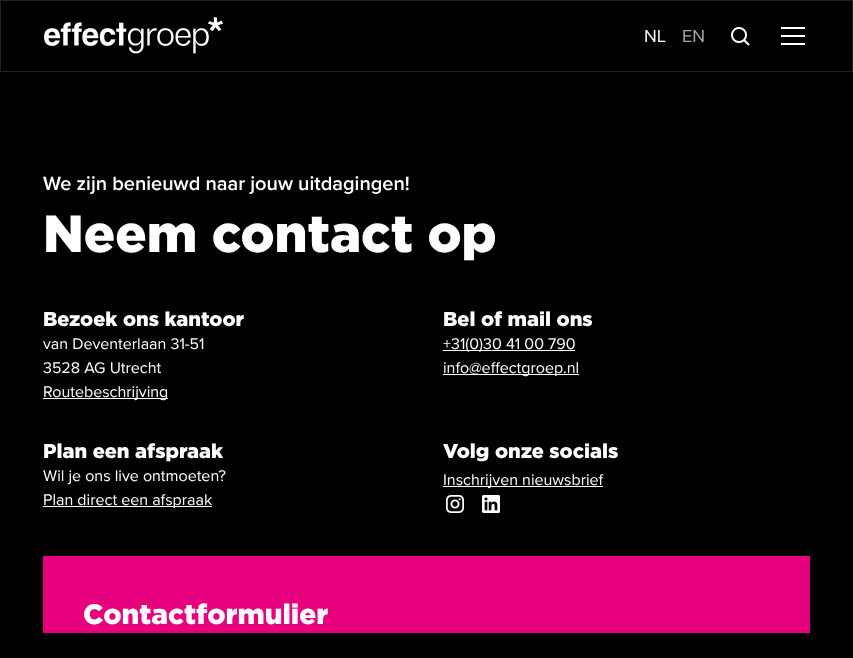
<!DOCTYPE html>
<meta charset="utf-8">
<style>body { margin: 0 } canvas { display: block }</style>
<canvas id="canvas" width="853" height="658"></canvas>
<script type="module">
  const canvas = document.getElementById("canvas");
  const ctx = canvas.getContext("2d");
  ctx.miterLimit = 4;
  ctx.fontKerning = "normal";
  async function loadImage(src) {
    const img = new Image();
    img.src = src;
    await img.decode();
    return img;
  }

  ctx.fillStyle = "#000000";
  ctx.fillRect(0, 0, 853, 658);
  ctx.strokeStyle = "#222222";
  ctx.strokeRect(0.5, 0.5, 852, 71);
  ctx.drawImage(await loadImage("img1.png"), 44, 17, 179, 37);
  ctx.font = "18px Proxima Nova";
  ctx.fillStyle = "#ffffff";
  ctx.fillText("NL", 644, 42);
  ctx.fillStyle = "#aaaaaa";
  ctx.fillText("EN", 682, 42);
  ctx.drawImage(await loadImage("img2.png"), 731, 27, 19, 19);
  ctx.fillStyle = "#ffffff";
  ctx.fillRect(781, 27, 24, 2);
  ctx.fillRect(781, 35, 24, 2);
  ctx.fillRect(781, 43, 24, 2);
  ctx.font = "600 20px Proxima Nova";
  ctx.fillText("We zijn benieuwd naar jouw uitdagingen!", 43, 190);
  ctx.font = "900 52px Gotham";
  ctx.fillText("Neem contact op", 43, 252);
  ctx.font = "900 20px Gotham";
  ctx.fillText("Bezoek ons kantoor", 43, 326);
  ctx.font = "16px Proxima Nova";
  ctx.fillText("van Deventerlaan 31-51", 43, 349);
  ctx.fillText("3528 AG Utrecht", 43, 373);
  ctx.fillRect(43, 398, 125, 1);
  ctx.fillText("Routebeschrijving", 43, 397);
  ctx.font = "900 20px Gotham";
  ctx.fillText("Bel of mail ons", 443, 326);
  ctx.fillRect(443, 350, 132, 1);
  ctx.font = "16px Proxima Nova";
  ctx.fillText("+31(0)30 41 00 790", 443, 349);
  ctx.fillRect(443, 374, 136, 1);
  ctx.fillText("info@effectgroep.nl", 443, 373);
  ctx.font = "900 20px Gotham";
  ctx.fillText("Plan een afspraak", 43, 458);
  ctx.font = "16px Proxima Nova";
  ctx.fillText("Wil je ons live ontmoeten?", 43, 481);
  ctx.fillRect(43, 506, 169, 1);
  ctx.fillText("Plan direct een afspraak", 43, 505);
  ctx.font = "900 20px Gotham";
  ctx.fillText("Volg onze socials", 443, 458);
  ctx.fillRect(443, 486, 160, 1);
  ctx.font = "16px Proxima Nova";
  ctx.fillText("Inschrijven nieuwsbrief", 443, 485);
  ctx.drawImage(await loadImage("img3.png"), 446, 495, 18, 18);
  ctx.drawImage(await loadImage("img4.png"), 482, 495, 18, 18);
  ctx.fillStyle = "#e6007e";
  ctx.fillRect(43, 556, 767, 77);
  ctx.font = "900 28px Gotham";
  ctx.fillStyle = "#ffffff";
  ctx.fillText("Contactformulier", 83, 624);
</script>
